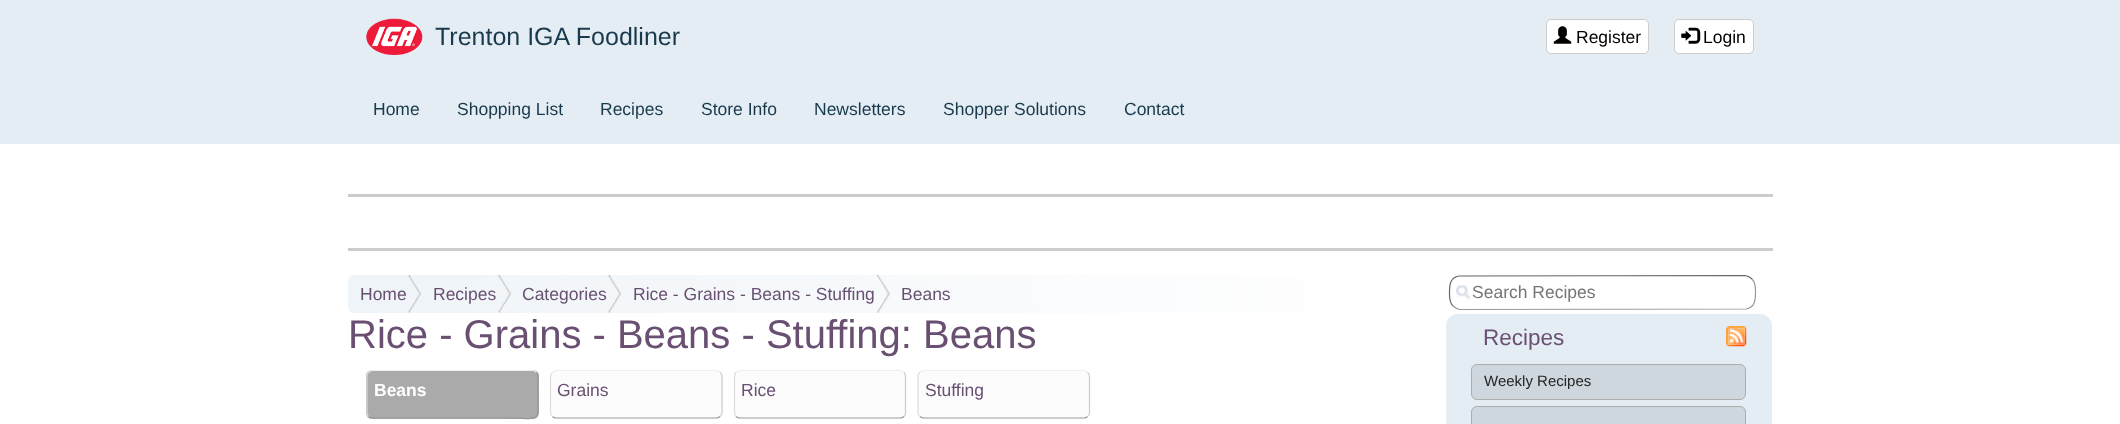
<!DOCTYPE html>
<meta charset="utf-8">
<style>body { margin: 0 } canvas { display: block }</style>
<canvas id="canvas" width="2120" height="424"></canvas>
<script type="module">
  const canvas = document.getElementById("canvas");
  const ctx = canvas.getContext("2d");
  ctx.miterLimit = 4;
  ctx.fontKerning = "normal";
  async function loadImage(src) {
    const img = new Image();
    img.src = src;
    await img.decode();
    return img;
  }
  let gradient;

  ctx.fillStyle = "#ffffff";
  ctx.fillRect(0, 0, 2120, 424);
  ctx.fillStyle = "#e4edf4";
  ctx.fillRect(0, 0, 2120, 144);
  ctx.drawImage(await loadImage("img1.png"), 366, 18, 57, 37);
  ctx.font = "25px Liberation Sans";
  ctx.fillStyle = "#193a4d";
  ctx.fillText("Trenton IGA Foodliner", 435, 45);
  ctx.fillStyle = "#ffffff";
  ctx.beginPath();
  ctx.roundRect(1546.5, 19.5, 102, 34, 4.5);
  ctx.fill();
  ctx.strokeStyle = "#cccccc";
  ctx.stroke();
  ctx.drawImage(await loadImage("img2.png"), 1553, 26, 19, 18);
  ctx.font = "17.5px Liberation Sans";
  ctx.fillStyle = "#000000";
  ctx.fillText("Register", 1576, 43);
  ctx.fillStyle = "#ffffff";
  ctx.beginPath();
  ctx.roundRect(1674.5, 19.5, 79, 34, 4.5);
  ctx.fill();
  ctx.stroke();
  ctx.drawImage(await loadImage("img3.png"), 1681, 27, 20, 17);
  ctx.fillStyle = "#000000";
  ctx.fillText("Login", 1703, 43);
  ctx.fillStyle = "#193a4d";
  ctx.fillText("Home", 373, 115);
  ctx.fillText("Shopping List", 457, 115);
  ctx.fillText("Recipes", 600, 115);
  ctx.fillText("Store Info", 701, 115);
  ctx.fillText("Newsletters", 814, 115);
  ctx.fillText("Shopper Solutions", 943, 115);
  ctx.fillText("Contact", 1124, 115);
  ctx.fillStyle = "#cccccc";
  ctx.fillRect(348, 194, 1425, 3);
  ctx.fillRect(348, 248, 1425, 3);
  gradient = ctx.createLinearGradient(1405, 275, 348, 313);
  gradient.addColorStop(0, "#ffffff");
  gradient.addColorStop(1, "#eff4f8");
  ctx.fillStyle = gradient;
  ctx.beginPath();
  ctx.roundRect(348, 275, 1057, 38, 6);
  ctx.fill();
  ctx.drawImage(await loadImage("img4.png"), 407, 275, 15, 38);
  ctx.fillStyle = "#695072";
  ctx.fillText("Home", 360, 300);
  ctx.drawImage(await loadImage("img5.png"), 497, 275, 15, 38);
  ctx.fillText("Recipes", 433, 300);
  ctx.drawImage(await loadImage("img6.png"), 607, 275, 15, 38);
  ctx.fillText("Categories", 522, 300);
  ctx.drawImage(await loadImage("img7.png"), 876, 275, 14, 38);
  ctx.fillText("Rice - Grains - Beans - Stuffing", 633, 300);
  ctx.fillText("Beans", 901, 300);
  ctx.font = "40px Liberation Sans";
  ctx.fillText("Rice - Grains - Beans - Stuffing: Beans", 348, 348);
  ctx.fillStyle = "#aaaaaa";
  ctx.beginPath();
  ctx.roundRect(366, 370, 173, 49, 6);
  ctx.fill();
  ctx.beginPath();
  ctx.moveTo(368.5, 372.5);
  ctx.bezierCurveTo(369.5, 371, 371, 370.5, 372.5, 370.5);
  ctx.lineTo(532.5, 370.5);
  ctx.bezierCurveTo(534, 370.5, 535.5, 371, 536.5, 372.5);
  ctx.strokeStyle = "#eeeeee";
  ctx.lineWidth = 1.2;
  ctx.stroke();
  ctx.beginPath();
  ctx.moveTo(536.5, 372.5);
  ctx.bezierCurveTo(539, 375, 538, 379, 538, 382.5);
  ctx.lineTo(538, 394.5);
  ctx.bezierCurveTo(538, 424.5, 541, 418, 506, 418);
  ctx.lineTo(372.5, 418);
  ctx.bezierCurveTo(371, 418, 369.5, 417.5, 368.5, 416.5);
  ctx.strokeStyle = "#999999";
  ctx.stroke();
  ctx.beginPath();
  ctx.moveTo(368.5, 416.5);
  ctx.bezierCurveTo(367.5, 415.5, 367, 414, 367, 412.5);
  ctx.lineTo(367, 376);
  ctx.bezierCurveTo(367, 375, 367.5, 373.5, 368.5, 372.5);
  ctx.strokeStyle = "#dddddd";
  ctx.stroke();
  ctx.font = "bold 17.5px Liberation Sans";
  ctx.fillStyle = "#ffffff";
  ctx.fillText("Beans", 374, 396);
  ctx.fillStyle = "#fcfcfc";
  ctx.beginPath();
  ctx.roundRect(550, 370, 173, 49, 6);
  ctx.fill();
  ctx.beginPath();
  ctx.moveTo(552.5, 372.5);
  ctx.bezierCurveTo(553.5, 371, 555, 370.5, 556, 370.5);
  ctx.lineTo(716, 370.5);
  ctx.bezierCurveTo(717.5, 370.5, 719, 371, 720, 372.5);
  ctx.strokeStyle = "#eeeeee";
  ctx.stroke();
  ctx.beginPath();
  ctx.moveTo(720, 372.5);
  ctx.bezierCurveTo(721.5, 373.5, 722, 375, 722, 376);
  ctx.lineTo(722, 412.5);
  ctx.bezierCurveTo(722, 414, 721.5, 415.5, 720, 416.5);
  ctx.strokeStyle = "#cccccc";
  ctx.stroke();
  ctx.beginPath();
  ctx.moveTo(720, 416.5);
  ctx.bezierCurveTo(719, 417.5, 717.5, 418, 716, 418);
  ctx.lineTo(556, 418);
  ctx.bezierCurveTo(555, 418, 553.5, 417.5, 552.5, 416.5);
  ctx.strokeStyle = "#999999";
  ctx.stroke();
  ctx.beginPath();
  ctx.moveTo(552.5, 416.5);
  ctx.bezierCurveTo(551, 415.5, 550.5, 414, 550.5, 412.5);
  ctx.lineTo(550.5, 376);
  ctx.bezierCurveTo(550.5, 375, 551, 373.5, 552.5, 372.5);
  ctx.strokeStyle = "#dddddd";
  ctx.stroke();
  ctx.font = "17.5px Liberation Sans";
  ctx.fillStyle = "#695072";
  ctx.fillText("Grains", 557, 396);
  ctx.fillStyle = "#fcfcfc";
  ctx.beginPath();
  ctx.roundRect(734, 370, 172, 49, 6);
  ctx.fill();
  ctx.beginPath();
  ctx.moveTo(736, 372.5);
  ctx.bezierCurveTo(737, 371, 738.5, 370.5, 740, 370.5);
  ctx.lineTo(900, 370.5);
  ctx.bezierCurveTo(901.5, 370.5, 903, 371, 904, 372.5);
  ctx.strokeStyle = "#eeeeee";
  ctx.stroke();
  ctx.beginPath();
  ctx.moveTo(904, 372.5);
  ctx.bezierCurveTo(905, 373.5, 905.5, 375, 905.5, 376);
  ctx.lineTo(905.5, 412.5);
  ctx.bezierCurveTo(905.5, 414, 905, 415.5, 904, 416.5);
  ctx.strokeStyle = "#cccccc";
  ctx.stroke();
  ctx.beginPath();
  ctx.moveTo(904, 416.5);
  ctx.bezierCurveTo(903, 417.5, 901.5, 418, 900, 418);
  ctx.lineTo(740, 418);
  ctx.bezierCurveTo(738.5, 418, 737, 417.5, 736, 416.5);
  ctx.strokeStyle = "#999999";
  ctx.stroke();
  ctx.beginPath();
  ctx.moveTo(736, 416.5);
  ctx.bezierCurveTo(735, 415.5, 734.5, 414, 734.5, 412.5);
  ctx.lineTo(734.5, 376);
  ctx.bezierCurveTo(734.5, 375, 735, 373.5, 736, 372.5);
  ctx.strokeStyle = "#dddddd";
  ctx.stroke();
  ctx.fillStyle = "#695072";
  ctx.fillText("Rice", 741, 396);
  ctx.fillStyle = "#fcfcfc";
  ctx.beginPath();
  ctx.roundRect(918, 370, 172, 49, 6);
  ctx.fill();
  ctx.beginPath();
  ctx.moveTo(920, 372.5);
  ctx.bezierCurveTo(921, 371, 922.5, 370.5, 924, 370.5);
  ctx.lineTo(1084, 370.5);
  ctx.bezierCurveTo(1085, 370.5, 1086.5, 371, 1087.5, 372.5);
  ctx.strokeStyle = "#eeeeee";
  ctx.stroke();
  ctx.beginPath();
  ctx.moveTo(1087.5, 372.5);
  ctx.bezierCurveTo(1089, 373.5, 1089.5, 375, 1089.5, 376);
  ctx.lineTo(1089.5, 412.5);
  ctx.bezierCurveTo(1089.5, 414, 1089, 415.5, 1087.5, 416.5);
  ctx.strokeStyle = "#cccccc";
  ctx.stroke();
  ctx.beginPath();
  ctx.moveTo(1087.5, 416.5);
  ctx.bezierCurveTo(1086.5, 417.5, 1085, 418, 1084, 418);
  ctx.lineTo(924, 418);
  ctx.bezierCurveTo(922.5, 418, 921, 417.5, 920, 416.5);
  ctx.strokeStyle = "#999999";
  ctx.stroke();
  ctx.beginPath();
  ctx.moveTo(920, 416.5);
  ctx.bezierCurveTo(918.5, 415.5, 918, 414, 918, 412.5);
  ctx.lineTo(918, 376);
  ctx.bezierCurveTo(918, 375, 918.5, 373.5, 920, 372.5);
  ctx.strokeStyle = "#dddddd";
  ctx.stroke();
  ctx.fillStyle = "#695072";
  ctx.fillText("Stuffing", 925, 396);
  ctx.drawImage(await loadImage("img8.png"), 1456, 285, 14, 14);
  ctx.beginPath();
  ctx.moveTo(1752, 279);
  ctx.bezierCurveTo(1756, 283, 1755.5, 287.5, 1755.5, 292.5);
  ctx.bezierCurveTo(1755.5, 300, 1755, 307.5, 1746, 309);
  ctx.lineTo(1460, 309.5);
  ctx.bezierCurveTo(1457.5, 309, 1455, 308, 1453, 306);
  ctx.strokeStyle = "#999999";
  ctx.stroke();
  ctx.beginPath();
  ctx.moveTo(1453, 306);
  ctx.bezierCurveTo(1449, 302, 1449.5, 297.5, 1449.5, 292.5);
  ctx.bezierCurveTo(1449.5, 285, 1450, 277.5, 1459, 276);
  ctx.lineTo(1745, 275.5);
  ctx.bezierCurveTo(1747.5, 276, 1750, 277, 1752, 279);
  ctx.strokeStyle = "#666666";
  ctx.stroke();
  ctx.fillStyle = "#757575";
  ctx.fillText("Search Recipes", 1472, 298);
  ctx.fillStyle = "#e4edf4";
  ctx.beginPath();
  ctx.roundRect(1445.5, 313.5, 327, 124, 12.5);
  ctx.fill();
  ctx.strokeStyle = "#ffffff";
  ctx.lineWidth = 1;
  ctx.stroke();
  ctx.font = "22.5px Liberation Sans";
  ctx.fillStyle = "#695072";
  ctx.fillText("Recipes", 1483, 345);
  ctx.drawImage(await loadImage("img9.png"), 1726, 326, 21, 21);
  ctx.fillStyle = "#ced7de";
  ctx.beginPath();
  ctx.roundRect(1471.5, 364.5, 274, 35, 5.5);
  ctx.fill();
  ctx.strokeStyle = "#adadad";
  ctx.stroke();
  ctx.font = "15px Liberation Sans";
  ctx.fillStyle = "#252525";
  ctx.fillText("Weekly Recipes", 1484, 386);
  ctx.fillStyle = "#ced7de";
  ctx.beginPath();
  ctx.roundRect(1471.5, 406.5, 274, 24, 5.5);
  ctx.fill();
  ctx.stroke();
</script>
